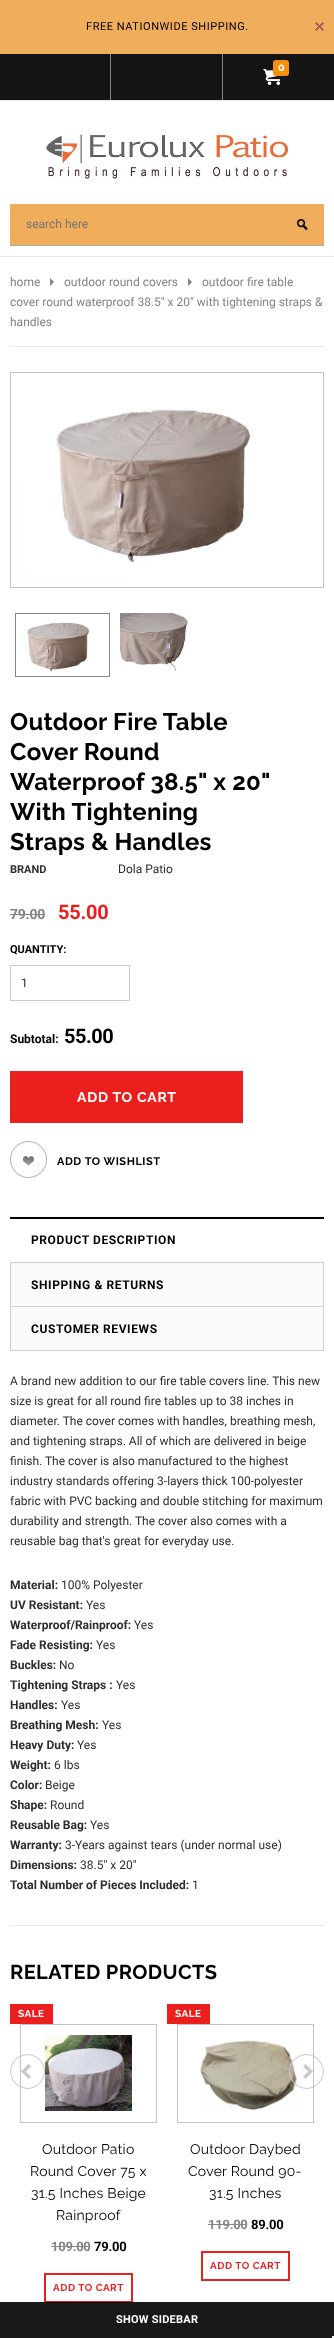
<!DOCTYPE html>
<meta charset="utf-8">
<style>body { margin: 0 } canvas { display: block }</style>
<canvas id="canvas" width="334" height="2338"></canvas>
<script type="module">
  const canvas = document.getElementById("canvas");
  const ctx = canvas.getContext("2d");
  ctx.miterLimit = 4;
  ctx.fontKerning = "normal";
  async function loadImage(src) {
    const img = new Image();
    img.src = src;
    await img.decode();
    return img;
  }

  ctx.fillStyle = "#ffffff";
  ctx.fillRect(0, 0, 334, 2338);
  ctx.fillStyle = "#f0ad5c";
  ctx.fillRect(0, 0, 334, 54);
  ctx.letterSpacing = "0.55px";
  ctx.font = "11px Roboto";
  ctx.fillStyle = "#000000";
  ctx.fillText("FREE NATIONWIDE SHIPPING.", 86, 30);
  ctx.drawImage(await loadImage("img1.png"), 315, 22, 9, 9);
  ctx.fillStyle = "#141414";
  ctx.fillRect(0, 54, 222, 46);
  ctx.fillStyle = "#868686";
  ctx.fillRect(110, 54, 1, 46);
  ctx.fillRect(222, 54, 1, 46);
  ctx.fillStyle = "#e9e9e9";
  ctx.fillRect(0, 100, 334, 1);
  ctx.fillStyle = "#141414";
  ctx.fillRect(223, 54, 111, 46);
  ctx.drawImage(await loadImage("img2.png"), 263, 69, 17, 16);
  ctx.fillStyle = "#f6900c";
  ctx.beginPath();
  ctx.roundRect(273, 60, 16, 16, 3);
  ctx.fill();
  ctx.font = "bold 11px Raleway";
  ctx.fillStyle = "#ffffff";
  ctx.fillText("0", 278, 71);
  ctx.fillStyle = "#e9e9e9";
  ctx.fillRect(0, 256, 334, 1);
  ctx.drawImage(await loadImage("img3.png"), 46, 132, 243, 47);
  ctx.fillStyle = "#f0ad5c";
  ctx.fillRect(10, 204, 314, 41);
  ctx.fillStyle = "#acacac";
  ctx.fillRect(10, 245, 314, 1);
  ctx.letterSpacing = "0px";
  ctx.font = "12px Roboto";
  ctx.fillStyle = "#757575";
  ctx.fillText("search here", 26, 228);
  ctx.drawImage(await loadImage("img4.png"), 297, 219, 11, 12);
  ctx.fillStyle = "#e9e9e9";
  ctx.fillRect(10, 346, 314, 1);
  ctx.fillStyle = "#848484";
  ctx.fillText("home", 10, 286);
  ctx.beginPath();
  ctx.moveTo(50, 286);
  ctx.lineTo(50, 278);
  ctx.lineTo(54, 282);
  ctx.closePath();
  ctx.fill();
  ctx.fillText("outdoor round covers", 64, 286);
  ctx.beginPath();
  ctx.moveTo(188, 286);
  ctx.lineTo(188, 278);
  ctx.lineTo(192, 282);
  ctx.closePath();
  ctx.fill();
  ctx.fillText("outdoor fire table", 202, 286);
  ctx.fillText("cover round waterproof 38.5\" x 20\" with tightening straps &", 10, 306);
  ctx.fillText("handles", 10, 326);
  ctx.strokeStyle = "#c3c3c3";
  ctx.strokeRect(10.5, 372.5, 313, 215);
  ctx.drawImage(await loadImage("img5.png"), 21, 409, 230, 168);
  ctx.strokeStyle = "#878787";
  ctx.strokeRect(15.5, 613.5, 94, 63);
  ctx.drawImage(await loadImage("img6.png"), 27, 622, 63, 50);
  ctx.drawImage(await loadImage("img7.png"), 120, 613, 69, 58);
  ctx.letterSpacing = "0.25px";
  ctx.font = "bold 24px Raleway";
  ctx.fillStyle = "#000000";
  ctx.fillText("Outdoor Fire Table", 10, 730);
  ctx.fillText("Cover Round", 10, 760);
  ctx.fillText("Waterproof 38.5\" x 20\"", 10, 790);
  ctx.fillText("With Tightening", 10, 820);
  ctx.fillText("Straps & Handles", 10, 850);
  ctx.letterSpacing = "0px";
  ctx.font = "bold 11px Roboto";
  ctx.fillStyle = "#2d2d2d";
  ctx.fillText("BRAND", 10, 873);
  ctx.font = "12px Roboto";
  ctx.fillText("Dola Patio", 118, 873);
  ctx.letterSpacing = "-0.25px";
  ctx.font = "bold 14px Roboto";
  ctx.fillStyle = "#848484";
  ctx.fillText("79.00", 10, 919);
  ctx.fillStyle = "#878787";
  ctx.fillRect(10, 914, 35, 1);
  ctx.font = "bold 20px Roboto";
  ctx.fillStyle = "#ec1f1f";
  ctx.fillText("55.00", 58, 919);
  ctx.letterSpacing = "0px";
  ctx.font = "bold 11px Roboto";
  ctx.fillStyle = "#000000";
  ctx.fillText("QUANTITY:", 10, 953);
  ctx.strokeStyle = "#cbcbcb";
  ctx.strokeRect(10.5, 965.5, 119, 35);
  ctx.font = "12px Roboto";
  ctx.fillStyle = "#2d2d2d";
  ctx.fillText("1", 21, 987);
  ctx.font = "bold 12px Roboto";
  ctx.fillStyle = "#000000";
  ctx.fillText("Subtotal:", 10, 1043);
  ctx.letterSpacing = "-0.5px";
  ctx.font = "bold 20px Roboto";
  ctx.fillText("55.00", 64, 1043);
  ctx.fillStyle = "#ec1f1f";
  ctx.fillRect(10, 1071, 233, 52);
  ctx.letterSpacing = "0.75px";
  ctx.font = "bold 14px Raleway";
  ctx.fillStyle = "#ffffff";
  ctx.fillText("ADD TO CART", 77, 1102);
  ctx.drawImage(await loadImage("img8.png"), 10, 1141, 37, 37);
  ctx.letterSpacing = "0.55px";
  ctx.font = "bold 11px Raleway";
  ctx.fillStyle = "#000000";
  ctx.fillText("ADD TO WISHLIST", 57, 1165);
  ctx.fillStyle = "#d0d0d0";
  ctx.fillRect(10, 1350, 314, 1);
  ctx.fillStyle = "#000000";
  ctx.fillRect(10, 1217, 314, 2);
  ctx.letterSpacing = "0.6px";
  ctx.font = "bold 12px Roboto";
  ctx.fillText("PRODUCT DESCRIPTION", 31, 1244);
  ctx.fillStyle = "#fafafa";
  ctx.fillRect(11, 1263, 312, 43);
  ctx.fillStyle = "#d0d0d0";
  ctx.fillRect(10, 1262, 314, 1);
  ctx.fillRect(323, 1262, 1, 44);
  ctx.fillRect(10, 1262, 1, 44);
  ctx.fillStyle = "#000000";
  ctx.fillText("SHIPPING & RETURNS", 31, 1289);
  ctx.fillStyle = "#fafafa";
  ctx.fillRect(11, 1307, 312, 43);
  ctx.fillStyle = "#d0d0d0";
  ctx.fillRect(10, 1306, 314, 1);
  ctx.fillRect(323, 1306, 1, 44);
  ctx.fillRect(10, 1306, 1, 44);
  ctx.fillStyle = "#000000";
  ctx.fillText("CUSTOMER REVIEWS", 31, 1333);
  ctx.letterSpacing = "0px";
  ctx.font = "12px Roboto";
  ctx.fillStyle = "#2d2d2d";
  ctx.fillText("A brand new addition to our fire table covers line. This new", 10, 1385);
  ctx.fillText("size is great for all round fire tables up to 38 inches in", 10, 1405);
  ctx.fillText("diameter. The cover comes with handles, breathing mesh,", 10, 1425);
  ctx.fillText("and tightening straps. All of which are delivered in beige", 10, 1445);
  ctx.fillText("finish. The cover is also manufactured to the highest", 10, 1465);
  ctx.fillText("industry standards offering 3-layers thick 100-polyester", 10, 1485);
  ctx.fillText("fabric with PVC backing and double stitching for maximum", 10, 1505);
  ctx.fillText("durability and strength. The cover also comes with a", 10, 1525);
  ctx.fillText("reusable bag that's great for everyday use.", 10, 1545);
  ctx.font = "bold 12px Roboto";
  ctx.fillText("Material:", 10, 1589);
  ctx.font = "12px Roboto";
  ctx.fillText("100% Polyester", 61, 1589);
  ctx.font = "bold 12px Roboto";
  ctx.fillText("UV Resistant:", 10, 1609);
  ctx.font = "12px Roboto";
  ctx.fillText("Yes", 86, 1609);
  ctx.font = "bold 12px Roboto";
  ctx.fillText("Waterproof/Rainproof:", 10, 1629);
  ctx.font = "12px Roboto";
  ctx.fillText("Yes", 134, 1629);
  ctx.font = "bold 12px Roboto";
  ctx.fillText("Fade Resisting:", 10, 1649);
  ctx.font = "12px Roboto";
  ctx.fillText("Yes", 96, 1649);
  ctx.font = "bold 12px Roboto";
  ctx.fillText("Buckles:", 10, 1669);
  ctx.font = "12px Roboto";
  ctx.fillText("No", 59, 1669);
  ctx.font = "bold 12px Roboto";
  ctx.fillText("Tightening Straps :", 10, 1689);
  ctx.font = "12px Roboto";
  ctx.fillText("Yes", 116, 1689);
  ctx.font = "bold 12px Roboto";
  ctx.fillText("Handles:", 10, 1709);
  ctx.font = "12px Roboto";
  ctx.fillText("Yes", 61, 1709);
  ctx.font = "bold 12px Roboto";
  ctx.fillText("Breathing Mesh:", 10, 1729);
  ctx.font = "12px Roboto";
  ctx.fillText("Yes", 102, 1729);
  ctx.font = "bold 12px Roboto";
  ctx.fillText("Heavy Duty:", 10, 1749);
  ctx.font = "12px Roboto";
  ctx.fillText("Yes", 77, 1749);
  ctx.font = "bold 12px Roboto";
  ctx.fillText("Weight:", 10, 1769);
  ctx.font = "12px Roboto";
  ctx.fillText("6 lbs", 54, 1769);
  ctx.font = "bold 12px Roboto";
  ctx.fillText("Color:", 10, 1789);
  ctx.font = "12px Roboto";
  ctx.fillText("Beige", 45, 1789);
  ctx.font = "bold 12px Roboto";
  ctx.fillText("Shape:", 10, 1809);
  ctx.font = "12px Roboto";
  ctx.fillText("Round", 50, 1809);
  ctx.font = "bold 12px Roboto";
  ctx.fillText("Reusable Bag:", 10, 1829);
  ctx.font = "12px Roboto";
  ctx.fillText("Yes", 90, 1829);
  ctx.font = "bold 12px Roboto";
  ctx.fillText("Warranty:", 10, 1849);
  ctx.font = "12px Roboto";
  ctx.fillText("3-Years against tears (under normal use)", 65, 1849);
  ctx.font = "bold 12px Roboto";
  ctx.fillText("Dimensions:", 10, 1869);
  ctx.font = "12px Roboto";
  ctx.fillText("38.5\" x 20\"", 80, 1869);
  ctx.font = "bold 12px Roboto";
  ctx.fillText("Total Number of Pieces Included:", 10, 1889);
  ctx.font = "12px Roboto";
  ctx.fillText("1", 192, 1889);
  ctx.fillStyle = "#e9e9e9";
  ctx.fillRect(10, 1925, 314, 1);
  ctx.letterSpacing = "0.4px";
  ctx.font = "bold 20px Raleway";
  ctx.fillStyle = "#000000";
  ctx.fillText("RELATED PRODUCTS", 10, 1979);
  ctx.fillStyle = "#ec1f1f";
  ctx.fillRect(10, 2004, 43, 20);
  ctx.letterSpacing = "0.5px";
  ctx.font = "bold 10px Raleway";
  ctx.fillStyle = "#ffffff";
  ctx.fillText("SALE", 18, 2017);
  ctx.strokeStyle = "#c3c3c3";
  ctx.strokeRect(20.5, 2024.5, 136, 98);
  ctx.drawImage(await loadImage("img9.png"), 45, 2035, 87, 76);
  ctx.strokeStyle = "#ec1f1f";
  ctx.lineWidth = 2;
  ctx.strokeRect(45, 2274, 87, 28);
  ctx.fillStyle = "#ec1f1f";
  ctx.fillText("ADD TO CART", 53, 2291);
  ctx.letterSpacing = "0.25px";
  ctx.font = "14px Raleway";
  ctx.fillStyle = "#000000";
  ctx.fillText("Outdoor Patio", 42, 2154);
  ctx.fillText("Round Cover 75 x", 30, 2176);
  ctx.fillText("31.5 Inches Beige", 31, 2198);
  ctx.fillText("Rainproof", 56, 2220);
  ctx.letterSpacing = "-0.25px";
  ctx.font = "bold 13px Roboto";
  ctx.fillStyle = "#848484";
  ctx.fillText("109.00", 51, 2251);
  ctx.fillStyle = "#878787";
  ctx.fillRect(51, 2246, 39, 1);
  ctx.fillStyle = "#000000";
  ctx.fillText("79.00", 94, 2251);
  ctx.fillStyle = "#ec1f1f";
  ctx.fillRect(167, 2004, 43, 20);
  ctx.letterSpacing = "0.5px";
  ctx.font = "bold 10px Raleway";
  ctx.fillStyle = "#ffffff";
  ctx.fillText("SALE", 175, 2017);
  ctx.strokeStyle = "#c3c3c3";
  ctx.lineWidth = 1;
  ctx.strokeRect(177.5, 2024.5, 136, 98);
  ctx.drawImage(await loadImage("img10.png"), 200, 2040, 98, 71);
  ctx.strokeStyle = "#ec1f1f";
  ctx.lineWidth = 2;
  ctx.strokeRect(202, 2252, 87, 28);
  ctx.fillStyle = "#ec1f1f";
  ctx.fillText("ADD TO CART", 210, 2269);
  ctx.letterSpacing = "0.25px";
  ctx.font = "14px Raleway";
  ctx.fillStyle = "#000000";
  ctx.fillText("Outdoor Daybed", 190, 2154);
  ctx.fillText("Cover Round 90-", 188, 2176);
  ctx.fillText("31.5 Inches", 209, 2198);
  ctx.letterSpacing = "-0.25px";
  ctx.font = "bold 13px Roboto";
  ctx.fillStyle = "#848484";
  ctx.fillText("119.00", 208, 2229);
  ctx.fillStyle = "#878787";
  ctx.fillRect(208, 2224, 39, 1);
  ctx.fillStyle = "#000000";
  ctx.fillText("89.00", 251, 2229);
  ctx.drawImage(await loadImage("img11.png"), 10, 2054, 35, 35);
  ctx.drawImage(await loadImage("img12.png"), 289, 2054, 35, 35);
  ctx.fillStyle = "rgba(0, 0, 0, 0.9)";
  ctx.fillRect(0, 2302, 334, 36);
  ctx.letterSpacing = "0.25px";
  ctx.font = "bold 11px Roboto";
  ctx.fillStyle = "#ffffff";
  ctx.fillText("SHOW SIDEBAR", 116, 2323);
  ctx.fillStyle = "#f5f5f5";
  ctx.fillRect(332, 2336, 2, 2);
</script>
